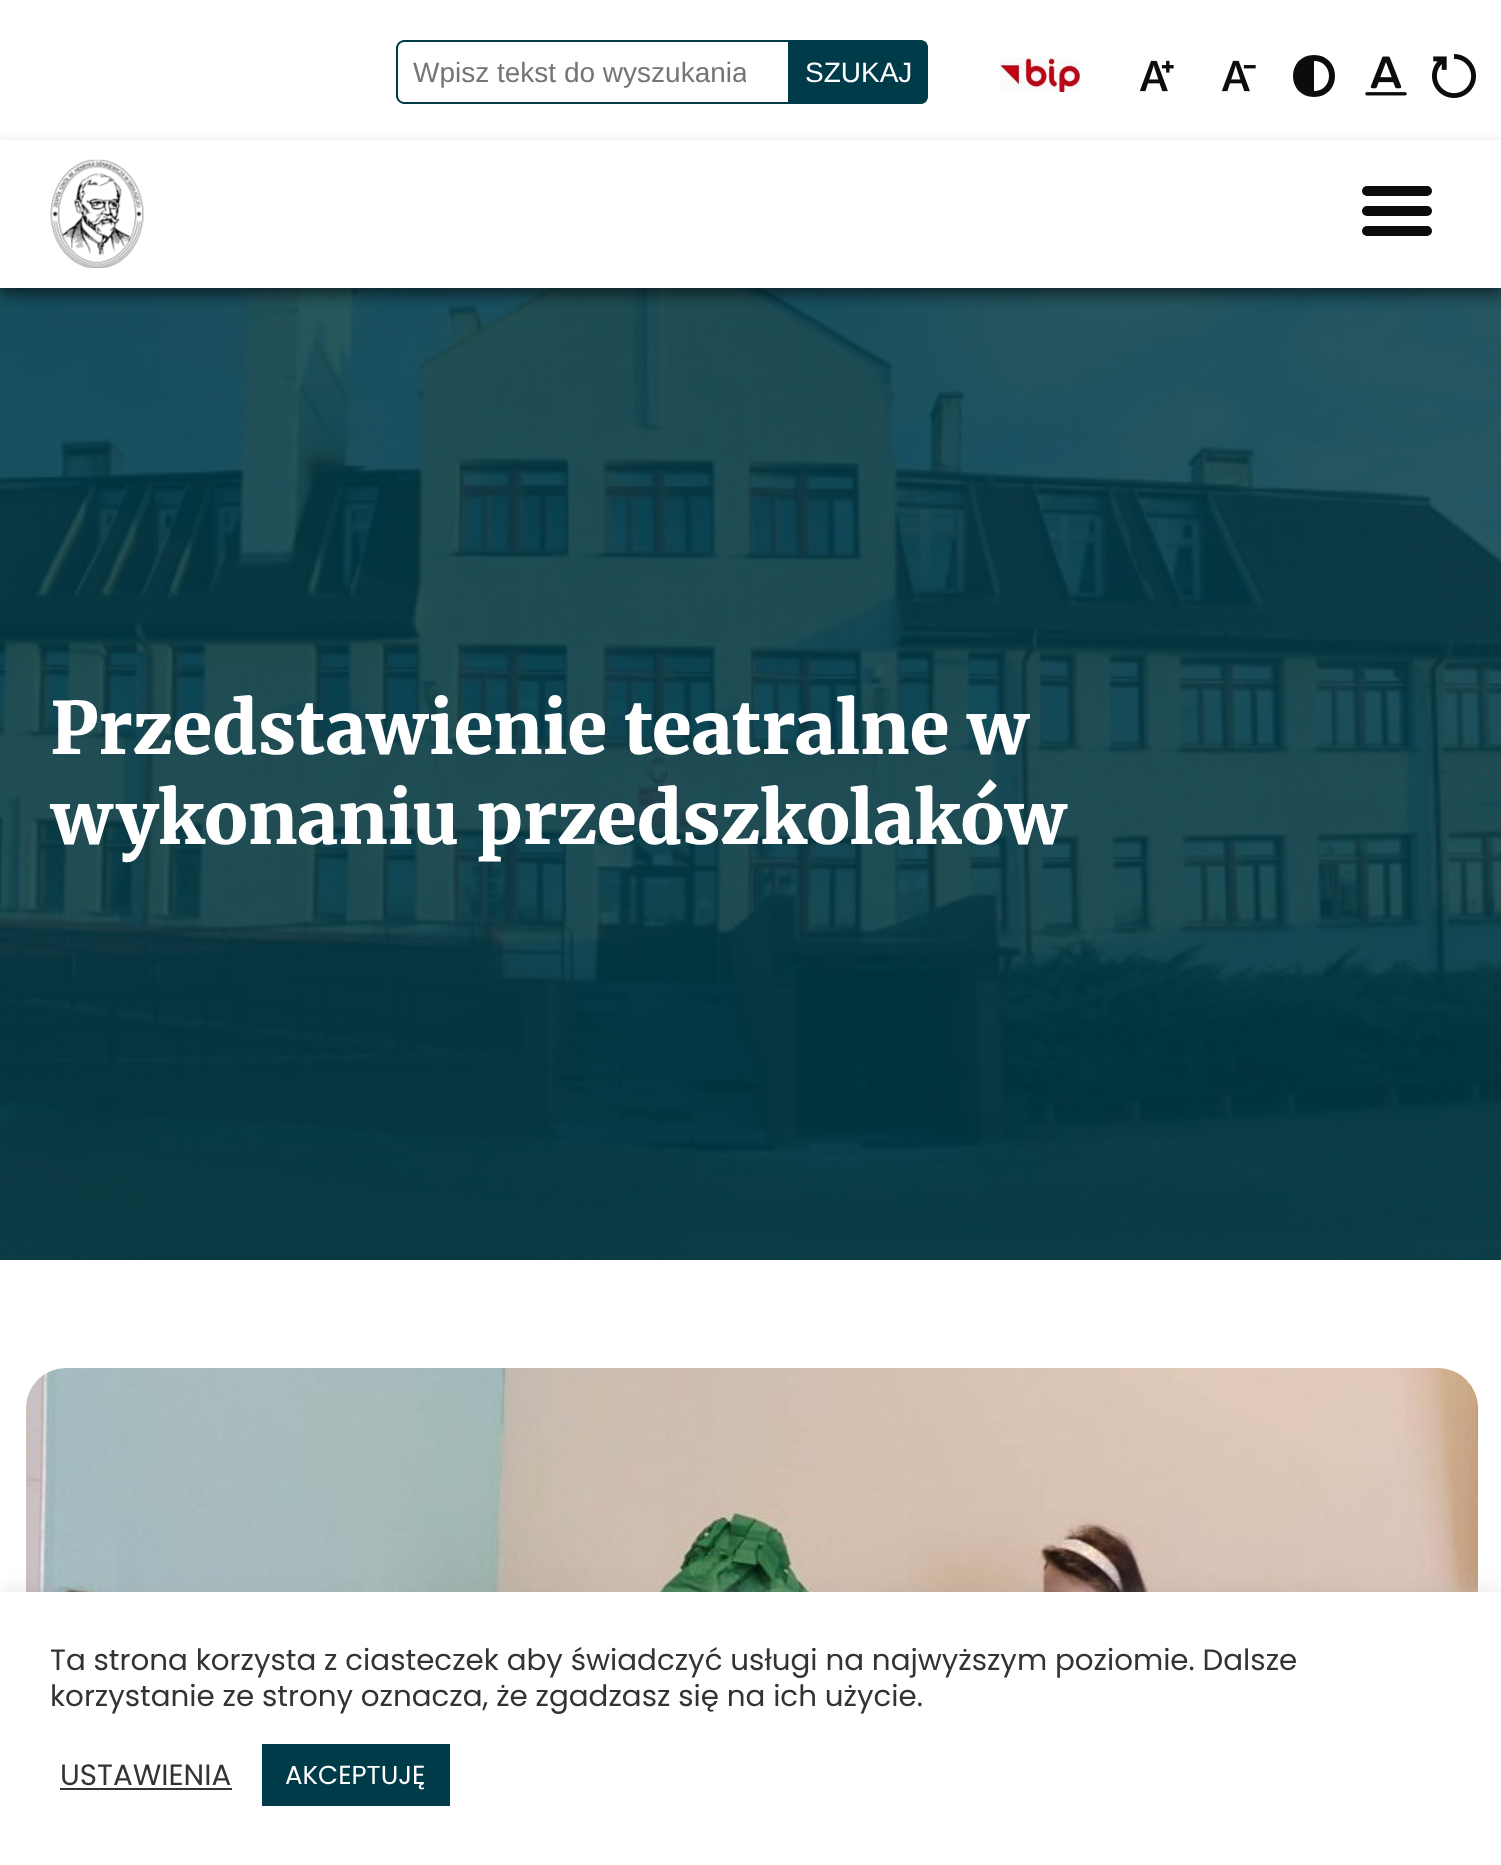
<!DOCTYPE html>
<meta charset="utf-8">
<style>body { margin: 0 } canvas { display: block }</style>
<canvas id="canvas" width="1501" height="1865"></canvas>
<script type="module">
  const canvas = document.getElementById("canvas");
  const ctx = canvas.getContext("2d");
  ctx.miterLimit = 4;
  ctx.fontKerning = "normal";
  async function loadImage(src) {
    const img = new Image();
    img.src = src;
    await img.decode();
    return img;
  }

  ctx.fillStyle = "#ffffff";
  ctx.fillRect(0, 0, 1501, 1865);
  ctx.fillStyle = "#003b49";
  ctx.fillRect(0, 288, 1501, 972);
  ctx.drawImage(await loadImage("img7.png"), 0, 288, 1501, 972);
  ctx.fillStyle = "rgba(0, 0, 0, 0.3)";
  ctx.filter = "blur(7px)";
  ctx.beginPath();
  ctx.rect(0, 6, 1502, 288);
  ctx.fill();
  ctx.filter = "none";
  ctx.fillStyle = "#ffffff";
  ctx.fillRect(0, 0, 1501, 288);
  ctx.fillStyle = "#003b49";
  ctx.beginPath();
  ctx.moveTo(404, 40);
  ctx.lineTo(788, 40);
  ctx.lineTo(788, 104);
  ctx.lineTo(404, 104);
  ctx.bezierCurveTo(400, 104, 396, 100, 396, 96);
  ctx.lineTo(396, 48);
  ctx.bezierCurveTo(396, 44, 400, 40, 404, 40);
  ctx.closePath();
  ctx.moveTo(404, 42);
  ctx.lineTo(788, 42);
  ctx.lineTo(788, 102);
  ctx.lineTo(404, 102);
  ctx.bezierCurveTo(401, 102, 398, 99, 398, 96);
  ctx.lineTo(398, 48);
  ctx.bezierCurveTo(398, 45, 401, 42, 404, 42);
  ctx.closePath();
  ctx.fill("evenodd");
  ctx.save();
  ctx.beginPath();
  ctx.rect(412, 56, 334, 32);
  ctx.clip();
  ctx.font = "28px Liberation Sans";
  ctx.fillStyle = "#757575";
  ctx.fillText("Wpisz tekst do wyszukania", 413, 82);
  ctx.restore();
  ctx.beginPath();
  ctx.roundRect(788, 40, 140, 64, [0, 8, 8, 0]);
  ctx.fill();
  ctx.beginPath();
  ctx.moveTo(788, 40);
  ctx.lineTo(790, 42);
  ctx.lineTo(921, 42);
  ctx.lineTo(924, 44);
  ctx.lineTo(926, 42);
  ctx.bezierCurveTo(924, 41, 922, 40, 920, 40);
  ctx.closePath();
  ctx.fill();
  ctx.beginPath();
  ctx.moveTo(928, 96);
  ctx.lineTo(928, 48);
  ctx.bezierCurveTo(928, 46, 927, 44, 926, 42);
  ctx.lineTo(924, 44);
  ctx.bezierCurveTo(925, 45, 926, 46, 926, 48);
  ctx.lineTo(926, 96);
  ctx.bezierCurveTo(926, 98, 925, 99, 924, 100);
  ctx.lineTo(926, 102);
  ctx.bezierCurveTo(927, 100, 928, 98, 928, 96);
  ctx.closePath();
  ctx.fill();
  ctx.beginPath();
  ctx.moveTo(920, 104);
  ctx.bezierCurveTo(922, 104, 924, 103, 926, 102);
  ctx.lineTo(924, 100);
  ctx.lineTo(921, 102);
  ctx.lineTo(790, 102);
  ctx.lineTo(788, 104);
  ctx.closePath();
  ctx.fill();
  ctx.font = "28px Liberation Sans";
  ctx.fillStyle = "#ffffff";
  ctx.fillText("SZUKAJ", 805, 82);
  ctx.drawImage(await loadImage("img1.png"), 1000, 58, 80, 34);
  ctx.drawImage(await loadImage("img2.png"), 1139, 60, 35, 32);
  ctx.drawImage(await loadImage("img3.png"), 1221, 60, 35, 32);
  ctx.fillStyle = "#0c0c0c";
  ctx.beginPath();
  ctx.moveTo(1314, 55);
  ctx.bezierCurveTo(1286, 55, 1286, 97, 1314, 97);
  ctx.bezierCurveTo(1342, 97, 1342, 55, 1314, 55);
  ctx.closePath();
  ctx.moveTo(1314, 61);
  ctx.bezierCurveTo(1334, 61, 1334, 91, 1314, 91);
  ctx.closePath();
  ctx.fill();
  ctx.drawImage(await loadImage("img4.png"), 1365, 56, 42, 40);
  ctx.drawImage(await loadImage("img5.png"), 1432, 54, 44, 44);
  ctx.save();
  ctx.beginPath();
  ctx.moveTo(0, 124);
  ctx.lineTo(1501, 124);
  ctx.lineTo(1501, 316);
  ctx.lineTo(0, 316);
  ctx.closePath();
  ctx.moveTo(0, 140);
  ctx.lineTo(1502, 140);
  ctx.lineTo(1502, 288);
  ctx.lineTo(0, 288);
  ctx.closePath();
  ctx.clip("evenodd");
  ctx.fillStyle = "rgba(0, 0, 0, 0.3)";
  ctx.filter = "blur(7px)";
  ctx.beginPath();
  ctx.rect(0, 146, 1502, 148);
  ctx.fill();
  ctx.filter = "none";
  ctx.restore();
  ctx.drawImage(await loadImage("img6.png"), 50, 159, 94, 109);
  ctx.beginPath();
  ctx.roundRect(1362, 186, 70, 10, 5);
  ctx.fill();
  ctx.beginPath();
  ctx.roundRect(1362, 206, 70, 10, 5);
  ctx.fill();
  ctx.beginPath();
  ctx.roundRect(1362, 226, 70, 10, 5);
  ctx.fill();
  ctx.font = "900 72px Merriweather";
  ctx.fillStyle = "#ffffff";
  ctx.fillText("Przedstawienie teatralne w", 50, 754);
  ctx.fillText("wykonaniu przedszkolaków", 50, 844);
  ctx.drawImage(await loadImage("img8.png"), 26, 1368, 1452, 224);
  ctx.fillStyle = "rgba(172, 171, 171, 0.3)";
  ctx.filter = "blur(10px)";
  ctx.beginPath();
  ctx.rect(0, 1590, 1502, 274);
  ctx.fill();
  ctx.filter = "none";
  ctx.fillStyle = "#ffffff";
  ctx.fillRect(0, 1592, 1501, 273);
  ctx.font = "29.35px Poppins";
  ctx.fillStyle = "#333333";
  ctx.fillText("Ta strona korzysta z ciasteczek aby świadczyć usługi na najwyższym poziomie. Dalsze", 50, 1670);
  ctx.fillText("korzystanie ze strony oznacza, że zgadzasz się na ich użycie.", 50, 1706);
  ctx.fillText("USTAWIENIA", 60, 1785);
  ctx.fillRect(60, 1788, 172, 2);
  ctx.fillStyle = "#003b49";
  ctx.fillRect(262, 1744, 188, 62);
  ctx.font = "26px Poppins";
  ctx.fillStyle = "#ffffff";
  ctx.fillText("AKCEPTUJĘ", 285, 1784);
</script>
